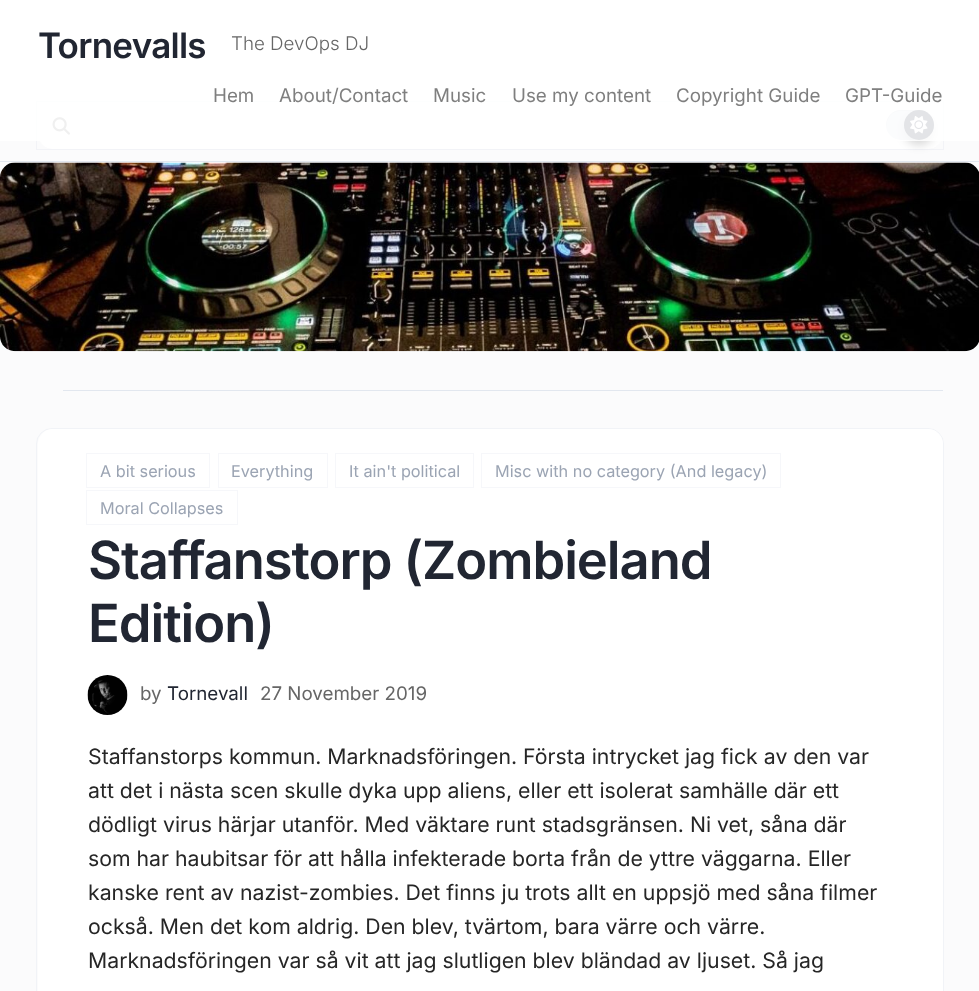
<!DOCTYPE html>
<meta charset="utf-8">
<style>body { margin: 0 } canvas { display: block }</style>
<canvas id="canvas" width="979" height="991"></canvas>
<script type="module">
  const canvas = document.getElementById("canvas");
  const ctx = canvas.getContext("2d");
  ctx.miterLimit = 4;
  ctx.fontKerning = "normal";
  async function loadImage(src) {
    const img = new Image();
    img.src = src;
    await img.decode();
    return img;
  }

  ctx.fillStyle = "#fbfbfc";
  ctx.fillRect(0, 0, 979, 991);
  ctx.strokeStyle = "rgba(14, 63, 126, 0.04)";
  ctx.strokeRect(36.5, 101.5, 907, 48);
  ctx.fillStyle = "#ffffff";
  ctx.beginPath();
  ctx.roundRect(38, 103, 905, 46, 15);
  ctx.fill();
  ctx.fillStyle = "#e2e7ef";
  ctx.beginPath();
  ctx.roundRect(886, 110, 48, 30, 15);
  ctx.fill();
  ctx.fillStyle = "rgba(0, 0, 0, 0.06)";
  ctx.beginPath();
  ctx.moveTo(901, 111);
  ctx.bezierCurveTo(913, 111, 934, 108, 934, 126);
  ctx.bezierCurveTo(934, 118, 929, 112, 922, 110);
  ctx.lineTo(898, 110);
  ctx.bezierCurveTo(889, 112, 884, 121, 887, 130);
  ctx.bezierCurveTo(885, 121, 890, 111, 901, 111);
  ctx.closePath();
  ctx.fill();
  ctx.fillStyle = "rgba(0, 0, 0, 0.16)";
  ctx.filter = "blur(5px)";
  ctx.beginPath();
  ctx.roundRect(904, 115, 30, 30, 15);
  ctx.fill();
  ctx.filter = "none";
  ctx.fillStyle = "#444c5f";
  ctx.beginPath();
  ctx.arc(919, 125, 15, 0, Math.PI * 2);
  ctx.fill();
  ctx.drawImage(await loadImage("img1.png"), 910, 116, 18, 18);
  ctx.drawImage(await loadImage("img2.png"), 52, 117, 18, 18);
  ctx.fillStyle = "rgba(255, 255, 255, 0.85)";
  ctx.fillRect(0, 0, 979, 141);
  ctx.letterSpacing = "-0.75px";
  ctx.font = "600 35px Inter";
  ctx.fillStyle = "#212632";
  ctx.fillText("Tornevalls", 38, 58);
  ctx.letterSpacing = "0px";
  ctx.font = "300 18.75px Inter";
  ctx.fillStyle = "#666666";
  ctx.fillText("The DevOps DJ", 231, 50);
  ctx.font = "18.75px Inter";
  ctx.fillStyle = "#7f7f7f";
  ctx.fillText("Hem", 213, 102);
  ctx.fillText("About/Contact", 279, 102);
  ctx.fillText("Music", 433, 102);
  ctx.fillText("Use my content", 512, 102);
  ctx.fillText("Copyright Guide", 676, 102);
  ctx.fillText("GPT-Guide", 845, 102);
  ctx.fillStyle = "#e2e7ef";
  ctx.fillRect(0, 161, 979, 1);
  ctx.drawImage(await loadImage("img3.png"), 0, 162, 979, 190);
  ctx.fillRect(63, 390, 880, 1);
  ctx.beginPath();
  ctx.roundRect(36.5, 428.5, 907, 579, 15.5);
  ctx.strokeStyle = "#f1f3f7";
  ctx.stroke();
  ctx.fillStyle = "#ffffff";
  ctx.beginPath();
  ctx.roundRect(38, 429, 905, 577, 15);
  ctx.fill();
  ctx.strokeStyle = "rgba(14, 63, 126, 0.04)";
  ctx.strokeRect(86.5, 453.5, 123, 34);
  ctx.beginPath();
  ctx.roundRect(88, 454, 121, 32, 16);
  ctx.fill();
  ctx.font = "16.25px Inter";
  ctx.fillStyle = "#9ba4b3";
  ctx.fillText("A bit serious", 100, 477);
  ctx.strokeRect(218.5, 453.5, 109, 34);
  ctx.fillStyle = "#ffffff";
  ctx.beginPath();
  ctx.roundRect(219, 454, 107, 32, 16);
  ctx.fill();
  ctx.fillStyle = "#9ba4b3";
  ctx.fillText("Everything", 231, 477);
  ctx.strokeRect(335.5, 453.5, 138, 34);
  ctx.fillStyle = "#ffffff";
  ctx.beginPath();
  ctx.roundRect(336, 454, 137, 32, 16);
  ctx.fill();
  ctx.fillStyle = "#9ba4b3";
  ctx.fillText("It ain't political", 349, 477);
  ctx.strokeRect(481.5, 453.5, 299, 34);
  ctx.fillStyle = "#ffffff";
  ctx.beginPath();
  ctx.roundRect(483, 454, 297, 32, 16);
  ctx.fill();
  ctx.fillStyle = "#9ba4b3";
  ctx.fillText("Misc with no category (And legacy)", 495, 477);
  ctx.strokeRect(86.5, 490.5, 151, 34);
  ctx.fillText("Moral Collapses", 100, 514);
  ctx.letterSpacing = "-1.05px";
  ctx.font = "600 52.5px Inter";
  ctx.fillStyle = "#212632";
  ctx.fillText("Staffanstorp (Zombieland", 88, 579);
  ctx.fillText("Edition)", 88, 642);
  ctx.drawImage(await loadImage("img4.png"), 87, 675, 41, 40);
  ctx.letterSpacing = "0px";
  ctx.font = "18.75px Inter";
  ctx.fillStyle = "#666666";
  ctx.fillText("by", 140, 700);
  ctx.fillStyle = "#212632";
  ctx.fillText("Tornevall", 167, 700);
  ctx.fillStyle = "#666666";
  ctx.fillText("27 November 2019", 260, 700);
  ctx.font = "21.25px Inter";
  ctx.fillStyle = "#262626";
  ctx.fillText("Staffanstorps kommun. Marknadsföringen. Första intrycket jag fick av den var", 88, 764);
  ctx.fillText("att det i nästa scen skulle dyka upp aliens, eller ett isolerat samhälle där ett", 88, 798);
  ctx.fillText("dödligt virus härjar utanför. Med väktare runt stadsgränsen. Ni vet, såna där", 88, 832);
  ctx.fillText("som har haubitsar för att hålla infekterade borta från de yttre väggarna. Eller", 88, 866);
  ctx.fillText("kanske rent av nazist-zombies. Det finns ju trots allt en uppsjö med såna filmer", 88, 900);
  ctx.fillText("också. Men det kom aldrig. Den blev, tvärtom, bara värre och värre.", 88, 934);
  ctx.fillText("Marknadsföringen var så vit att jag slutligen blev bländad av ljuset. Så jag", 88, 968);
</script>
